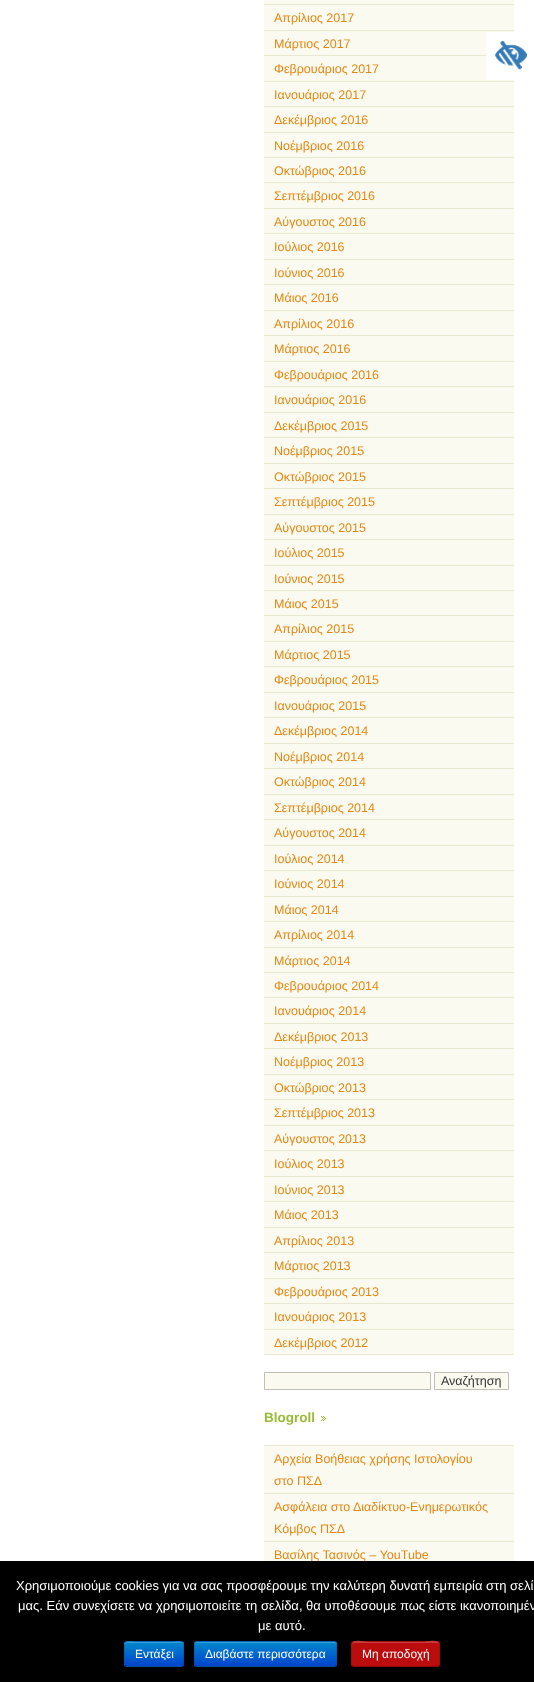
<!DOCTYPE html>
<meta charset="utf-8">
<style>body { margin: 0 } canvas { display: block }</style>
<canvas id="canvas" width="534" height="1682"></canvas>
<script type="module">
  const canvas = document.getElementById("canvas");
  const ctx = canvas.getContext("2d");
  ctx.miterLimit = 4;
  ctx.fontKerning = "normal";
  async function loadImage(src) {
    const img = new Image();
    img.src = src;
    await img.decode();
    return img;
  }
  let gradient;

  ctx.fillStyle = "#ffffff";
  ctx.fillRect(0, 0, 534, 1682);
  ctx.fillStyle = "#fafaf0";
  ctx.fillRect(264, 0, 250, 1354);
  ctx.fillStyle = "#e8e7d0";
  ctx.fillRect(264, 4, 250, 1);
  ctx.fillRect(264, 30, 250, 1);
  ctx.font = "12.5px Liberation Sans";
  ctx.fillStyle = "#e58712";
  ctx.fillText("Απρίλιος 2017", 274, 22);
  ctx.fillStyle = "#e8e7d0";
  ctx.fillRect(264, 55, 222, 1);
  ctx.fillStyle = "#e58712";
  ctx.fillText("Μάρτιος 2017", 274, 48);
  ctx.fillStyle = "#e8e7d0";
  ctx.fillRect(264, 81, 250, 1);
  ctx.fillStyle = "#e58712";
  ctx.fillText("Φεβρουάριος 2017", 274, 73);
  ctx.fillStyle = "#e8e7d0";
  ctx.fillRect(264, 106, 250, 1);
  ctx.fillStyle = "#e58712";
  ctx.fillText("Ιανουάριος 2017", 274, 99);
  ctx.fillStyle = "#e8e7d0";
  ctx.fillRect(264, 132, 250, 1);
  ctx.fillStyle = "#e58712";
  ctx.fillText("Δεκέμβριος 2016", 274, 124);
  ctx.fillStyle = "#e8e7d0";
  ctx.fillRect(264, 157, 250, 1);
  ctx.fillStyle = "#e58712";
  ctx.fillText("Νοέμβριος 2016", 274, 150);
  ctx.fillStyle = "#e8e7d0";
  ctx.fillRect(264, 182, 250, 1);
  ctx.fillStyle = "#e58712";
  ctx.fillText("Οκτώβριος 2016", 274, 175);
  ctx.fillStyle = "#e8e7d0";
  ctx.fillRect(264, 208, 250, 1);
  ctx.fillStyle = "#e58712";
  ctx.fillText("Σεπτέμβριος 2016", 274, 200);
  ctx.fillStyle = "#e8e7d0";
  ctx.fillRect(264, 233, 250, 1);
  ctx.fillStyle = "#e58712";
  ctx.fillText("Αύγουστος 2016", 274, 226);
  ctx.fillStyle = "#e8e7d0";
  ctx.fillRect(264, 259, 250, 1);
  ctx.fillStyle = "#e58712";
  ctx.fillText("Ιούλιος 2016", 274, 251);
  ctx.fillStyle = "#e8e7d0";
  ctx.fillRect(264, 284, 250, 1);
  ctx.fillStyle = "#e58712";
  ctx.fillText("Ιούνιος 2016", 274, 277);
  ctx.fillStyle = "#e8e7d0";
  ctx.fillRect(264, 310, 250, 1);
  ctx.fillStyle = "#e58712";
  ctx.fillText("Μάιος 2016", 274, 302);
  ctx.fillStyle = "#e8e7d0";
  ctx.fillRect(264, 335, 250, 1);
  ctx.fillStyle = "#e58712";
  ctx.fillText("Απρίλιος 2016", 274, 328);
  ctx.fillStyle = "#e8e7d0";
  ctx.fillRect(264, 361, 250, 1);
  ctx.fillStyle = "#e58712";
  ctx.fillText("Μάρτιος 2016", 274, 353);
  ctx.fillStyle = "#e8e7d0";
  ctx.fillRect(264, 386, 250, 1);
  ctx.fillStyle = "#e58712";
  ctx.fillText("Φεβρουάριος 2016", 274, 379);
  ctx.fillStyle = "#e8e7d0";
  ctx.fillRect(264, 412, 250, 1);
  ctx.fillStyle = "#e58712";
  ctx.fillText("Ιανουάριος 2016", 274, 404);
  ctx.fillStyle = "#e8e7d0";
  ctx.fillRect(264, 437, 250, 1);
  ctx.fillStyle = "#e58712";
  ctx.fillText("Δεκέμβριος 2015", 274, 430);
  ctx.fillStyle = "#e8e7d0";
  ctx.fillRect(264, 463, 250, 1);
  ctx.fillStyle = "#e58712";
  ctx.fillText("Νοέμβριος 2015", 274, 455);
  ctx.fillStyle = "#e8e7d0";
  ctx.fillRect(264, 488, 250, 1);
  ctx.fillStyle = "#e58712";
  ctx.fillText("Οκτώβριος 2015", 274, 481);
  ctx.fillStyle = "#e8e7d0";
  ctx.fillRect(264, 514, 250, 1);
  ctx.fillStyle = "#e58712";
  ctx.fillText("Σεπτέμβριος 2015", 274, 506);
  ctx.fillStyle = "#e8e7d0";
  ctx.fillRect(264, 539, 250, 1);
  ctx.fillStyle = "#e58712";
  ctx.fillText("Αύγουστος 2015", 274, 532);
  ctx.fillStyle = "#e8e7d0";
  ctx.fillRect(264, 565, 250, 1);
  ctx.fillStyle = "#e58712";
  ctx.fillText("Ιούλιος 2015", 274, 557);
  ctx.fillStyle = "#e8e7d0";
  ctx.fillRect(264, 590, 250, 1);
  ctx.fillStyle = "#e58712";
  ctx.fillText("Ιούνιος 2015", 274, 583);
  ctx.fillStyle = "#e8e7d0";
  ctx.fillRect(264, 615, 250, 1);
  ctx.fillStyle = "#e58712";
  ctx.fillText("Μάιος 2015", 274, 608);
  ctx.fillStyle = "#e8e7d0";
  ctx.fillRect(264, 641, 250, 1);
  ctx.fillStyle = "#e58712";
  ctx.fillText("Απρίλιος 2015", 274, 633);
  ctx.fillStyle = "#e8e7d0";
  ctx.fillRect(264, 666, 250, 1);
  ctx.fillStyle = "#e58712";
  ctx.fillText("Μάρτιος 2015", 274, 659);
  ctx.fillStyle = "#e8e7d0";
  ctx.fillRect(264, 692, 250, 1);
  ctx.fillStyle = "#e58712";
  ctx.fillText("Φεβρουάριος 2015", 274, 684);
  ctx.fillStyle = "#e8e7d0";
  ctx.fillRect(264, 717, 250, 1);
  ctx.fillStyle = "#e58712";
  ctx.fillText("Ιανουάριος 2015", 274, 710);
  ctx.fillStyle = "#e8e7d0";
  ctx.fillRect(264, 743, 250, 1);
  ctx.fillStyle = "#e58712";
  ctx.fillText("Δεκέμβριος 2014", 274, 735);
  ctx.fillStyle = "#e8e7d0";
  ctx.fillRect(264, 768, 250, 1);
  ctx.fillStyle = "#e58712";
  ctx.fillText("Νοέμβριος 2014", 274, 761);
  ctx.fillStyle = "#e8e7d0";
  ctx.fillRect(264, 794, 250, 1);
  ctx.fillStyle = "#e58712";
  ctx.fillText("Οκτώβριος 2014", 274, 786);
  ctx.fillStyle = "#e8e7d0";
  ctx.fillRect(264, 819, 250, 1);
  ctx.fillStyle = "#e58712";
  ctx.fillText("Σεπτέμβριος 2014", 274, 812);
  ctx.fillStyle = "#e8e7d0";
  ctx.fillRect(264, 845, 250, 1);
  ctx.fillStyle = "#e58712";
  ctx.fillText("Αύγουστος 2014", 274, 837);
  ctx.fillStyle = "#e8e7d0";
  ctx.fillRect(264, 870, 250, 1);
  ctx.fillStyle = "#e58712";
  ctx.fillText("Ιούλιος 2014", 274, 863);
  ctx.fillStyle = "#e8e7d0";
  ctx.fillRect(264, 896, 250, 1);
  ctx.fillStyle = "#e58712";
  ctx.fillText("Ιούνιος 2014", 274, 888);
  ctx.fillStyle = "#e8e7d0";
  ctx.fillRect(264, 921, 250, 1);
  ctx.fillStyle = "#e58712";
  ctx.fillText("Μάιος 2014", 274, 914);
  ctx.fillStyle = "#e8e7d0";
  ctx.fillRect(264, 947, 250, 1);
  ctx.fillStyle = "#e58712";
  ctx.fillText("Απρίλιος 2014", 274, 939);
  ctx.fillStyle = "#e8e7d0";
  ctx.fillRect(264, 972, 250, 1);
  ctx.fillStyle = "#e58712";
  ctx.fillText("Μάρτιος 2014", 274, 965);
  ctx.fillStyle = "#e8e7d0";
  ctx.fillRect(264, 997, 250, 1);
  ctx.fillStyle = "#e58712";
  ctx.fillText("Φεβρουάριος 2014", 274, 990);
  ctx.fillStyle = "#e8e7d0";
  ctx.fillRect(264, 1023, 250, 1);
  ctx.fillStyle = "#e58712";
  ctx.fillText("Ιανουάριος 2014", 274, 1015);
  ctx.fillStyle = "#e8e7d0";
  ctx.fillRect(264, 1048, 250, 1);
  ctx.fillStyle = "#e58712";
  ctx.fillText("Δεκέμβριος 2013", 274, 1041);
  ctx.fillStyle = "#e8e7d0";
  ctx.fillRect(264, 1074, 250, 1);
  ctx.fillStyle = "#e58712";
  ctx.fillText("Νοέμβριος 2013", 274, 1066);
  ctx.fillStyle = "#e8e7d0";
  ctx.fillRect(264, 1099, 250, 1);
  ctx.fillStyle = "#e58712";
  ctx.fillText("Οκτώβριος 2013", 274, 1092);
  ctx.fillStyle = "#e8e7d0";
  ctx.fillRect(264, 1125, 250, 1);
  ctx.fillStyle = "#e58712";
  ctx.fillText("Σεπτέμβριος 2013", 274, 1117);
  ctx.fillStyle = "#e8e7d0";
  ctx.fillRect(264, 1150, 250, 1);
  ctx.fillStyle = "#e58712";
  ctx.fillText("Αύγουστος 2013", 274, 1143);
  ctx.fillStyle = "#e8e7d0";
  ctx.fillRect(264, 1176, 250, 1);
  ctx.fillStyle = "#e58712";
  ctx.fillText("Ιούλιος 2013", 274, 1168);
  ctx.fillStyle = "#e8e7d0";
  ctx.fillRect(264, 1201, 250, 1);
  ctx.fillStyle = "#e58712";
  ctx.fillText("Ιούνιος 2013", 274, 1194);
  ctx.fillStyle = "#e8e7d0";
  ctx.fillRect(264, 1227, 250, 1);
  ctx.fillStyle = "#e58712";
  ctx.fillText("Μάιος 2013", 274, 1219);
  ctx.fillStyle = "#e8e7d0";
  ctx.fillRect(264, 1252, 250, 1);
  ctx.fillStyle = "#e58712";
  ctx.fillText("Απρίλιος 2013", 274, 1245);
  ctx.fillStyle = "#e8e7d0";
  ctx.fillRect(264, 1278, 250, 1);
  ctx.fillStyle = "#e58712";
  ctx.fillText("Μάρτιος 2013", 274, 1270);
  ctx.fillStyle = "#e8e7d0";
  ctx.fillRect(264, 1303, 250, 1);
  ctx.fillStyle = "#e58712";
  ctx.fillText("Φεβρουάριος 2013", 274, 1296);
  ctx.fillStyle = "#e8e7d0";
  ctx.fillRect(264, 1329, 250, 1);
  ctx.fillStyle = "#e58712";
  ctx.fillText("Ιανουάριος 2013", 274, 1321);
  ctx.fillStyle = "#e8e7d0";
  ctx.fillRect(264, 1354, 250, 1);
  ctx.fillStyle = "#e58712";
  ctx.fillText("Δεκέμβριος 2012", 274, 1347);
  ctx.fillStyle = "#fafaf0";
  ctx.beginPath();
  ctx.rect(264.5, 1372.5, 166, 17);
  ctx.fill();
  ctx.strokeStyle = "#c1c0b5";
  ctx.stroke();
  ctx.beginPath();
  ctx.rect(434.5, 1372.5, 74, 17);
  ctx.fill();
  ctx.stroke();
  ctx.fillStyle = "#333333";
  ctx.fillText("Αναζήτηση", 441, 1385);
  ctx.font = "bold 13.5px Liberation Sans";
  ctx.fillStyle = "#9bbb38";
  ctx.fillText("Blogroll", 264, 1422);
  ctx.drawImage(await loadImage("img1.png"), 321, 1416, 5, 5);
  ctx.fillStyle = "#fafaf0";
  ctx.fillRect(264, 1446, 250, 115);
  ctx.fillStyle = "#e8e7d0";
  ctx.fillRect(264, 1445, 250, 1);
  ctx.fillRect(264, 1493, 250, 1);
  ctx.font = "12.5px Liberation Sans";
  ctx.fillStyle = "#e58712";
  ctx.fillText("Αρχεία Βοήθειας χρήσης Ιστολογίου", 274, 1463);
  ctx.fillText("στο ΠΣΔ", 274, 1485);
  ctx.fillStyle = "#e8e7d0";
  ctx.fillRect(264, 1541, 250, 1);
  ctx.fillStyle = "#e58712";
  ctx.fillText("Ασφάλεια στο Διαδίκτυο-Ενημερωτικός", 274, 1511);
  ctx.fillText("Κόμβος ΠΣΔ", 274, 1533);
  ctx.fillText("Βασίλης Τασινός – YouTube", 274, 1559);
  ctx.fillStyle = "#ffffff";
  ctx.fillRect(486, 32, 28, 48);
  ctx.drawImage(await loadImage("img2.png"), 495, 41, 32, 29);
  ctx.fillStyle = "#000000";
  ctx.fillRect(0, 1561, 534, 121);
  ctx.font = "13px Liberation Sans";
  ctx.fillStyle = "#ffffff";
  ctx.fillText("Χρησιμοποιούμε cookies για να σας προσφέρουμε την καλύτερη δυνατή εμπειρία στη σελί", 16, 1590);
  ctx.fillText("μας. Εάν συνεχίσετε να χρησιμοποιείτε τη σελίδα, θα υποθέσουμε πως είστε ικανοποιημέν", 18, 1610);
  ctx.fillText("με αυτό.", 258, 1630);
  ctx.fillStyle = "#006dcc";
  ctx.beginPath();
  ctx.roundRect(124, 1641, 60, 26, 3);
  ctx.fill();
  ctx.save();
  ctx.beginPath();
  ctx.roundRect(124, 1641, 60, 26, 3);
  ctx.clip();
  gradient = ctx.createLinearGradient(154, 1642, 154, 1666);
  gradient.addColorStop(0, "#0088cc");
  gradient.addColorStop(1, "#0044cc");
  ctx.fillStyle = gradient;
  ctx.fillRect(124, 1642, 60, 24);
  ctx.restore();
  ctx.fillStyle = "#339fd6";
  ctx.beginPath();
  ctx.moveTo(127, 1643);
  ctx.lineTo(181, 1643);
  ctx.bezierCurveTo(182, 1643, 183, 1644, 183, 1645);
  ctx.bezierCurveTo(183, 1640, 176, 1642, 172, 1642);
  ctx.lineTo(136, 1642);
  ctx.bezierCurveTo(132, 1642, 125, 1640, 125, 1645);
  ctx.bezierCurveTo(125, 1644, 126, 1643, 127, 1643);
  ctx.closePath();
  ctx.fill();
  ctx.beginPath();
  ctx.moveTo(183, 1666);
  ctx.lineTo(181, 1666.5);
  ctx.lineTo(127, 1666.5);
  ctx.lineTo(125, 1666);
  ctx.strokeStyle = "rgba(0, 0, 0, 0.25)";
  ctx.stroke();
  ctx.beginPath();
  ctx.moveTo(125, 1666);
  ctx.bezierCurveTo(123.5, 1664, 124.5, 1656.5, 124.5, 1654);
  ctx.bezierCurveTo(124.5, 1640, 122, 1641.5, 136, 1641.5);
  ctx.lineTo(172, 1641.5);
  ctx.bezierCurveTo(186, 1641.5, 183.5, 1640, 183.5, 1654);
  ctx.bezierCurveTo(183.5, 1656.5, 184.5, 1664, 183, 1666);
  ctx.strokeStyle = "rgba(0, 0, 0, 0.1)";
  ctx.stroke();
  ctx.font = "12px Liberation Sans";
  ctx.fillStyle = "#ffffff";
  ctx.fillText("Εντάξει", 135, 1658);
  ctx.fillStyle = "#006dcc";
  ctx.beginPath();
  ctx.roundRect(194, 1641, 143, 26, 3);
  ctx.fill();
  ctx.save();
  ctx.beginPath();
  ctx.roundRect(194, 1641, 143, 26, 3);
  ctx.clip();
  gradient = ctx.createLinearGradient(266, 1642, 266, 1666);
  gradient.addColorStop(0, "#0088cc");
  gradient.addColorStop(1, "#0044cc");
  ctx.fillStyle = gradient;
  ctx.fillRect(194, 1642, 143, 24);
  ctx.restore();
  ctx.fillStyle = "rgba(255, 255, 255, 0.2)";
  ctx.beginPath();
  ctx.moveTo(197, 1643);
  ctx.lineTo(334, 1643);
  ctx.bezierCurveTo(335, 1643, 336, 1644, 336, 1645);
  ctx.bezierCurveTo(336, 1644, 336, 1643, 335, 1642);
  ctx.lineTo(197, 1642);
  ctx.lineTo(195, 1643);
  ctx.lineTo(195, 1645);
  ctx.bezierCurveTo(195, 1644, 196, 1643, 197, 1643);
  ctx.closePath();
  ctx.fill();
  ctx.beginPath();
  ctx.moveTo(336, 1666);
  ctx.lineTo(334, 1666.5);
  ctx.lineTo(197, 1666.5);
  ctx.lineTo(195, 1666);
  ctx.strokeStyle = "rgba(0, 0, 0, 0.25)";
  ctx.stroke();
  ctx.beginPath();
  ctx.moveTo(195, 1666);
  ctx.bezierCurveTo(193.5, 1664, 194.5, 1656.5, 194.5, 1654);
  ctx.lineTo(194.5, 1647.5);
  ctx.bezierCurveTo(194.5, 1645.5, 194, 1641.5, 197, 1641.5);
  ctx.lineTo(334, 1641.5);
  ctx.bezierCurveTo(337, 1641.5, 336.5, 1645.5, 336.5, 1647.5);
  ctx.lineTo(336.5, 1654);
  ctx.bezierCurveTo(336.5, 1656.5, 337.5, 1664, 336, 1666);
  ctx.strokeStyle = "rgba(0, 0, 0, 0.1)";
  ctx.stroke();
  ctx.fillStyle = "#ffffff";
  ctx.fillText("Διαβάστε περισσότερα", 205, 1658);
  ctx.fillStyle = "#bb0d0d";
  ctx.beginPath();
  ctx.roundRect(351, 1641, 89, 26, 3);
  ctx.fill();
  ctx.fillStyle = "#c93d3d";
  ctx.beginPath();
  ctx.moveTo(354, 1643);
  ctx.lineTo(437, 1643);
  ctx.bezierCurveTo(438, 1643, 439, 1644, 439, 1645);
  ctx.bezierCurveTo(439, 1638, 426, 1642, 423, 1642);
  ctx.lineTo(368, 1642);
  ctx.bezierCurveTo(365, 1642, 352, 1638, 352, 1645);
  ctx.bezierCurveTo(352, 1644, 353, 1643, 354, 1643);
  ctx.closePath();
  ctx.fill();
  ctx.beginPath();
  ctx.moveTo(439, 1666);
  ctx.lineTo(438.5, 1666);
  ctx.bezierCurveTo(436.5, 1667.5, 375, 1666.5, 368, 1666.5);
  ctx.lineTo(354, 1666.5);
  ctx.lineTo(352, 1666);
  ctx.strokeStyle = "rgba(0, 0, 0, 0.25)";
  ctx.stroke();
  ctx.beginPath();
  ctx.moveTo(352, 1666);
  ctx.bezierCurveTo(350.5, 1664, 351.5, 1659.5, 351.5, 1657.5);
  ctx.bezierCurveTo(351.5, 1638, 348, 1641.5, 368, 1641.5);
  ctx.lineTo(423, 1641.5);
  ctx.bezierCurveTo(443, 1641.5, 439.5, 1638, 439.5, 1657.5);
  ctx.bezierCurveTo(439.5, 1659.5, 440.5, 1664, 439, 1666);
  ctx.strokeStyle = "rgba(0, 0, 0, 0.1)";
  ctx.stroke();
  ctx.fillStyle = "#ffffff";
  ctx.fillText("Μη αποδοχή", 362, 1658);
</script>
